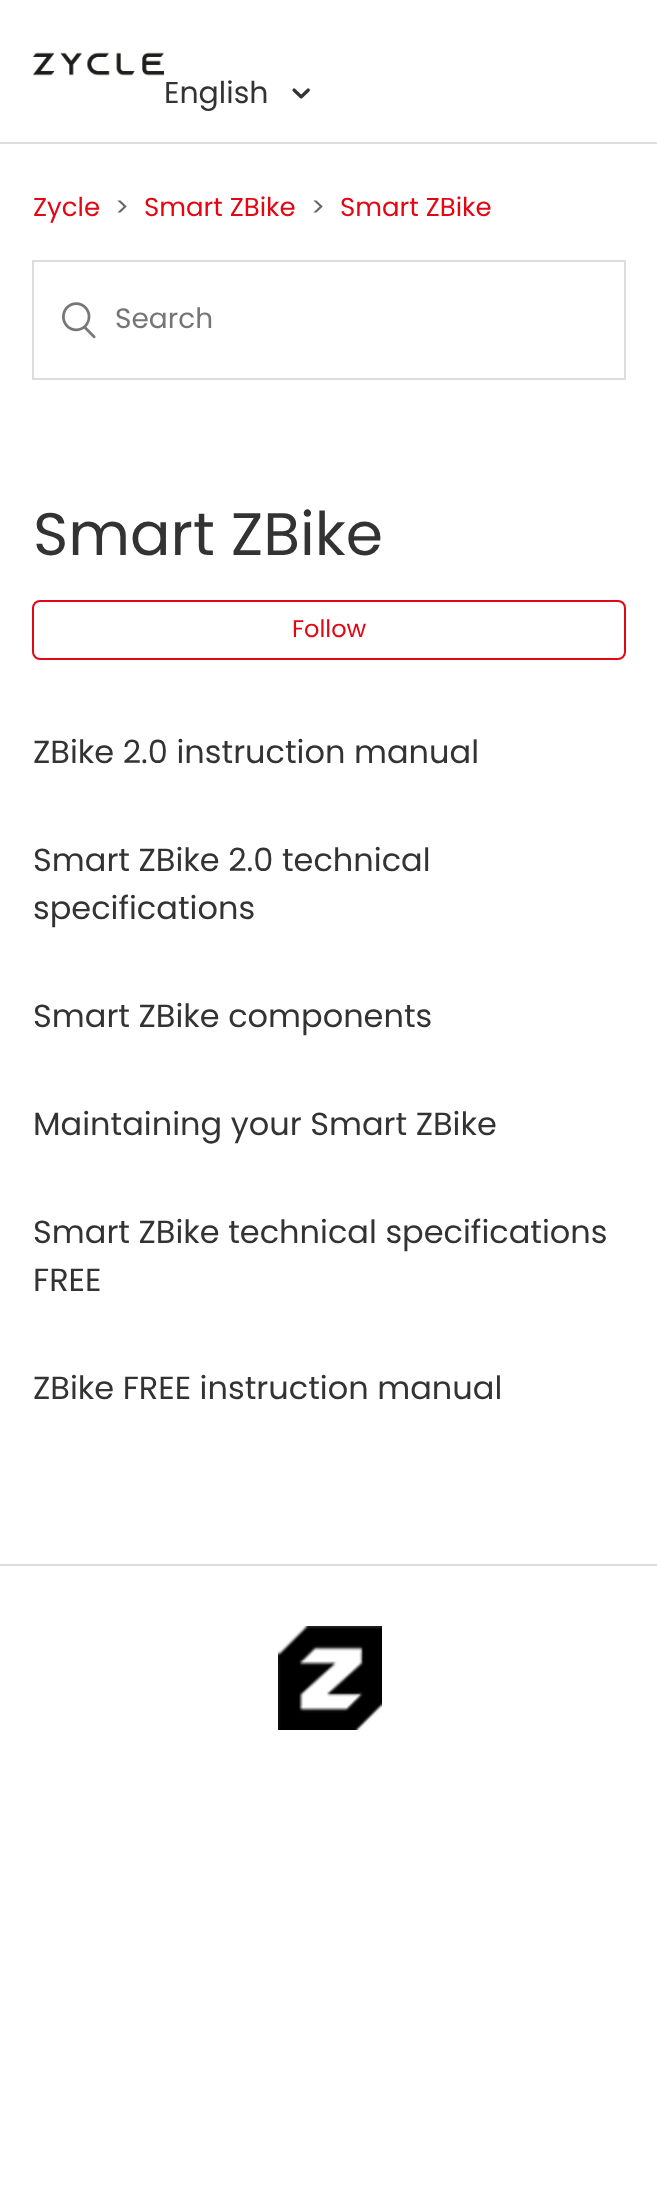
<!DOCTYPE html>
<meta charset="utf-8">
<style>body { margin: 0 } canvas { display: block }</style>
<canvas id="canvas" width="657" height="2208"></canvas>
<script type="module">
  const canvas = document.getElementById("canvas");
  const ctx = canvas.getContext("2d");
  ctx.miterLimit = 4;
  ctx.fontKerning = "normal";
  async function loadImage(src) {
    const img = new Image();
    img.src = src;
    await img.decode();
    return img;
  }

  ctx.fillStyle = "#ffffff";
  ctx.fillRect(0, 0, 657, 2208);
  ctx.drawImage(await loadImage("img1.png"), 32, 52, 132, 24);
  ctx.font = "30px Poppins";
  ctx.fillStyle = "#333333";
  ctx.fillText("English", 164, 103);
  ctx.drawImage(await loadImage("img2.png"), 292, 88, 18, 11);
  ctx.fillStyle = "#dddddd";
  ctx.fillRect(0, 142, 657, 2);
  ctx.font = "26px Poppins";
  ctx.fillStyle = "#e30613";
  ctx.fillText("Zycle", 33, 216);
  ctx.fillStyle = "#666666";
  ctx.fillText(">", 115, 216);
  ctx.fillStyle = "#e30613";
  ctx.fillText("Smart ZBike", 144, 216);
  ctx.fillStyle = "#666666";
  ctx.fillText(">", 311, 216);
  ctx.fillStyle = "#e30613";
  ctx.fillText("Smart ZBike", 340, 216);
  ctx.strokeStyle = "#dddddd";
  ctx.lineWidth = 2;
  ctx.strokeRect(33, 261, 592, 118);
  ctx.drawImage(await loadImage("img3.png"), 62, 302, 34, 37);
  ctx.font = "28px Poppins";
  ctx.fillStyle = "#757575";
  ctx.fillText("Search", 115, 328);
  ctx.font = "60px Poppins";
  ctx.fillStyle = "#333333";
  ctx.fillText("Smart ZBike", 33, 555);
  ctx.beginPath();
  ctx.roundRect(33, 601, 592, 58, 7);
  ctx.strokeStyle = "#e30613";
  ctx.stroke();
  ctx.font = "24px Poppins";
  ctx.fillStyle = "#e30613";
  ctx.fillText("Follow", 292, 637);
  ctx.font = "32px Poppins";
  ctx.fillStyle = "#333333";
  ctx.fillText("ZBike 2.0 instruction manual", 33, 763);
  ctx.fillText("Smart ZBike 2.0 technical", 33, 871);
  ctx.fillText("specifications", 33, 919);
  ctx.fillText("Smart ZBike components", 33, 1027);
  ctx.fillText("Maintaining your Smart ZBike", 33, 1135);
  ctx.fillText("Smart ZBike technical specifications", 33, 1243);
  ctx.fillText("FREE", 33, 1291);
  ctx.fillText("ZBike FREE instruction manual", 33, 1399);
  ctx.fillStyle = "#dddddd";
  ctx.fillRect(0, 1564, 657, 2);
  ctx.drawImage(await loadImage("img4.png"), 278, 1626, 104, 104);
</script>
